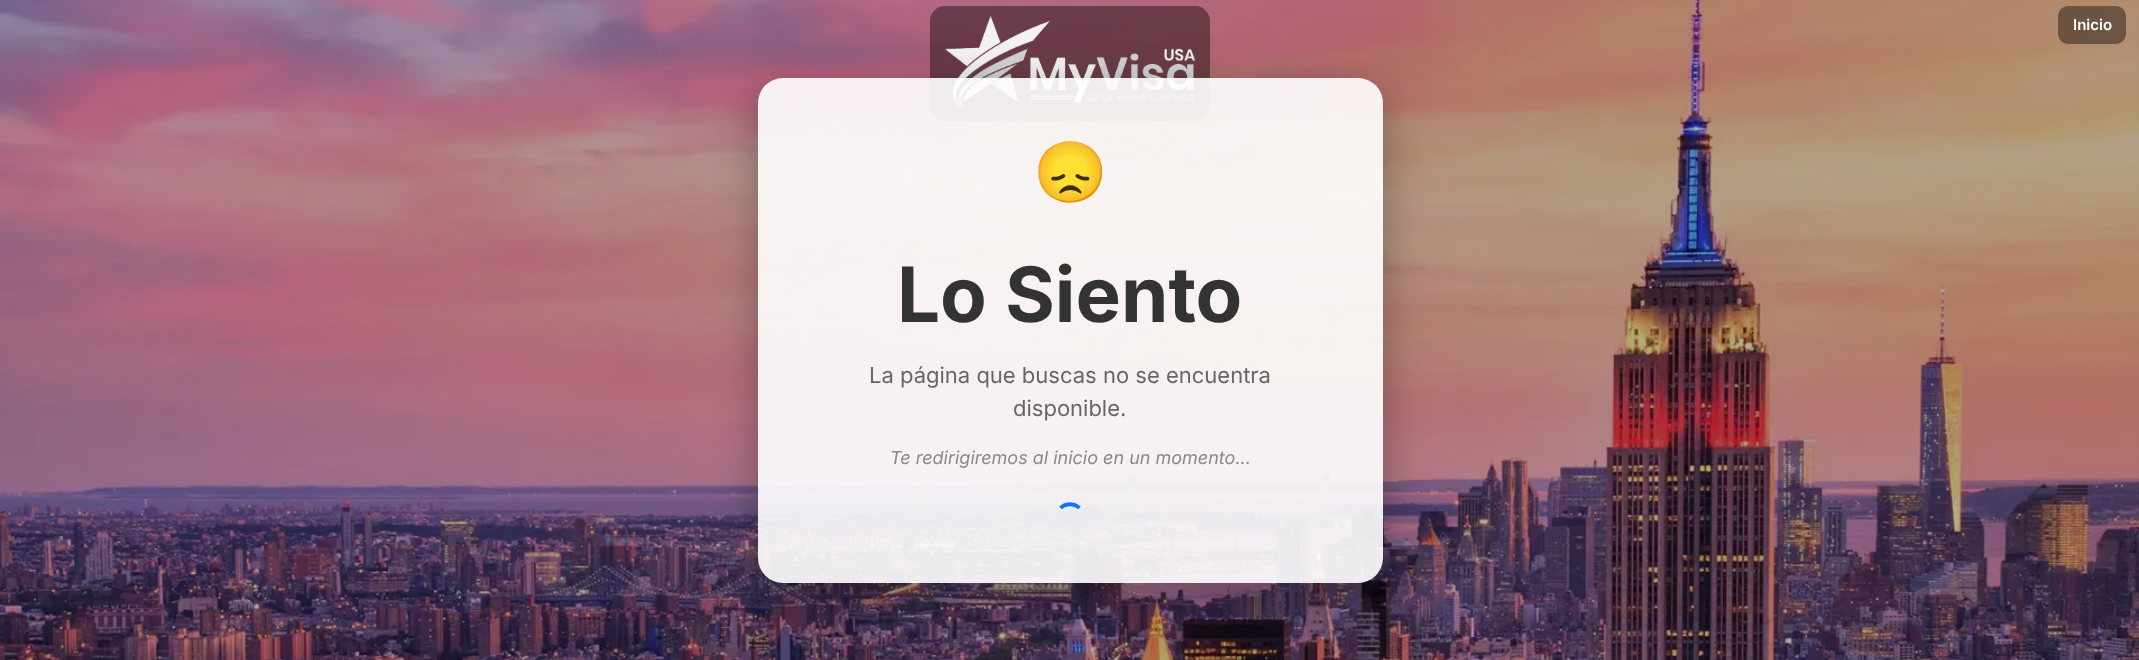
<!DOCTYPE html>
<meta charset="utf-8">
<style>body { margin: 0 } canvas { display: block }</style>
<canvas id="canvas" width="2139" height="660"></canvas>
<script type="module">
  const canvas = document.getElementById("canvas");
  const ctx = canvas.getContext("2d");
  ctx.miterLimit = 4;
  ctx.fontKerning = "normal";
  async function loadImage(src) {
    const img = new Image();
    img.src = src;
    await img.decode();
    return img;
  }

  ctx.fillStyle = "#ffffff";
  ctx.fillRect(0, 0, 2139, 660);
  ctx.drawImage(await loadImage("img1.png"), 0, 0, 2139, 660);
  ctx.fillStyle = "rgba(0, 0, 0, 0.4)";
  ctx.beginPath();
  ctx.roundRect(930, 6, 280, 115, 15);
  ctx.fill();
  ctx.drawImage(await loadImage("img2.png"), 945, 16, 250, 95);
  ctx.beginPath();
  ctx.roundRect(2058, 6, 68, 38, 10);
  ctx.fill();
  ctx.font = "600 15px Inter";
  ctx.fillStyle = "#ffffff";
  ctx.fillText("Inicio", 2073, 30);
  ctx.save();
  ctx.beginPath();
  ctx.moveTo(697, 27);
  ctx.lineTo(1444, 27);
  ctx.lineTo(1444, 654);
  ctx.lineTo(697, 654);
  ctx.closePath();
  ctx.moveTo(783, 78);
  ctx.lineTo(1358, 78);
  ctx.bezierCurveTo(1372, 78, 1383, 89, 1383, 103);
  ctx.lineTo(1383, 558);
  ctx.bezierCurveTo(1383, 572, 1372, 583, 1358, 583);
  ctx.lineTo(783, 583);
  ctx.bezierCurveTo(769, 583, 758, 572, 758, 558);
  ctx.lineTo(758, 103);
  ctx.bezierCurveTo(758, 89, 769, 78, 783, 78);
  ctx.closePath();
  ctx.clip("evenodd");
  ctx.fillStyle = "rgba(0, 0, 0, 0.3)";
  ctx.filter = "blur(20px)";
  ctx.beginPath();
  ctx.roundRect(758, 88, 625, 505, 25);
  ctx.fill();
  ctx.filter = "none";
  ctx.restore();
  ctx.fillStyle = "rgba(255, 255, 255, 0.9)";
  ctx.beginPath();
  ctx.roundRect(758, 78, 625, 505, 25);
  ctx.fill();
  ctx.font = "60px Noto Color Emoji";
  ctx.fillStyle = "#212529";
  ctx.fillText("😞", 1033, 193);
  ctx.font = "bold 76.25px Inter";
  ctx.fillStyle = "#333333";
  ctx.fillText("Lo Siento", 897, 322);
  ctx.font = "22px Inter";
  ctx.fillStyle = "#666666";
  ctx.fillText("La página que buscas no se encuentra", 869, 383);
  ctx.fillText("disponible.", 1013, 416);
  ctx.font = "italic 18px Inter";
  ctx.fillStyle = "#888888";
  ctx.fillText("Te redirigiremos al inicio en un momento...", 890, 464);
  ctx.beginPath();
  ctx.moveTo(1060.5, 508);
  ctx.bezierCurveTo(1066, 503, 1074, 503, 1079.5, 508);
  ctx.strokeStyle = "#007bff";
  ctx.lineWidth = 3.8;
  ctx.stroke();
  ctx.beginPath();
  ctx.moveTo(1079.5, 508);
  ctx.bezierCurveTo(1082.5, 511, 1083.5, 515.5, 1083, 520);
  ctx.bezierCurveTo(1080, 535, 1057, 533, 1057, 517);
  ctx.bezierCurveTo(1057, 514, 1058.5, 510.5, 1060.5, 508);
  ctx.strokeStyle = "#eaecf0";
  ctx.stroke();
</script>
